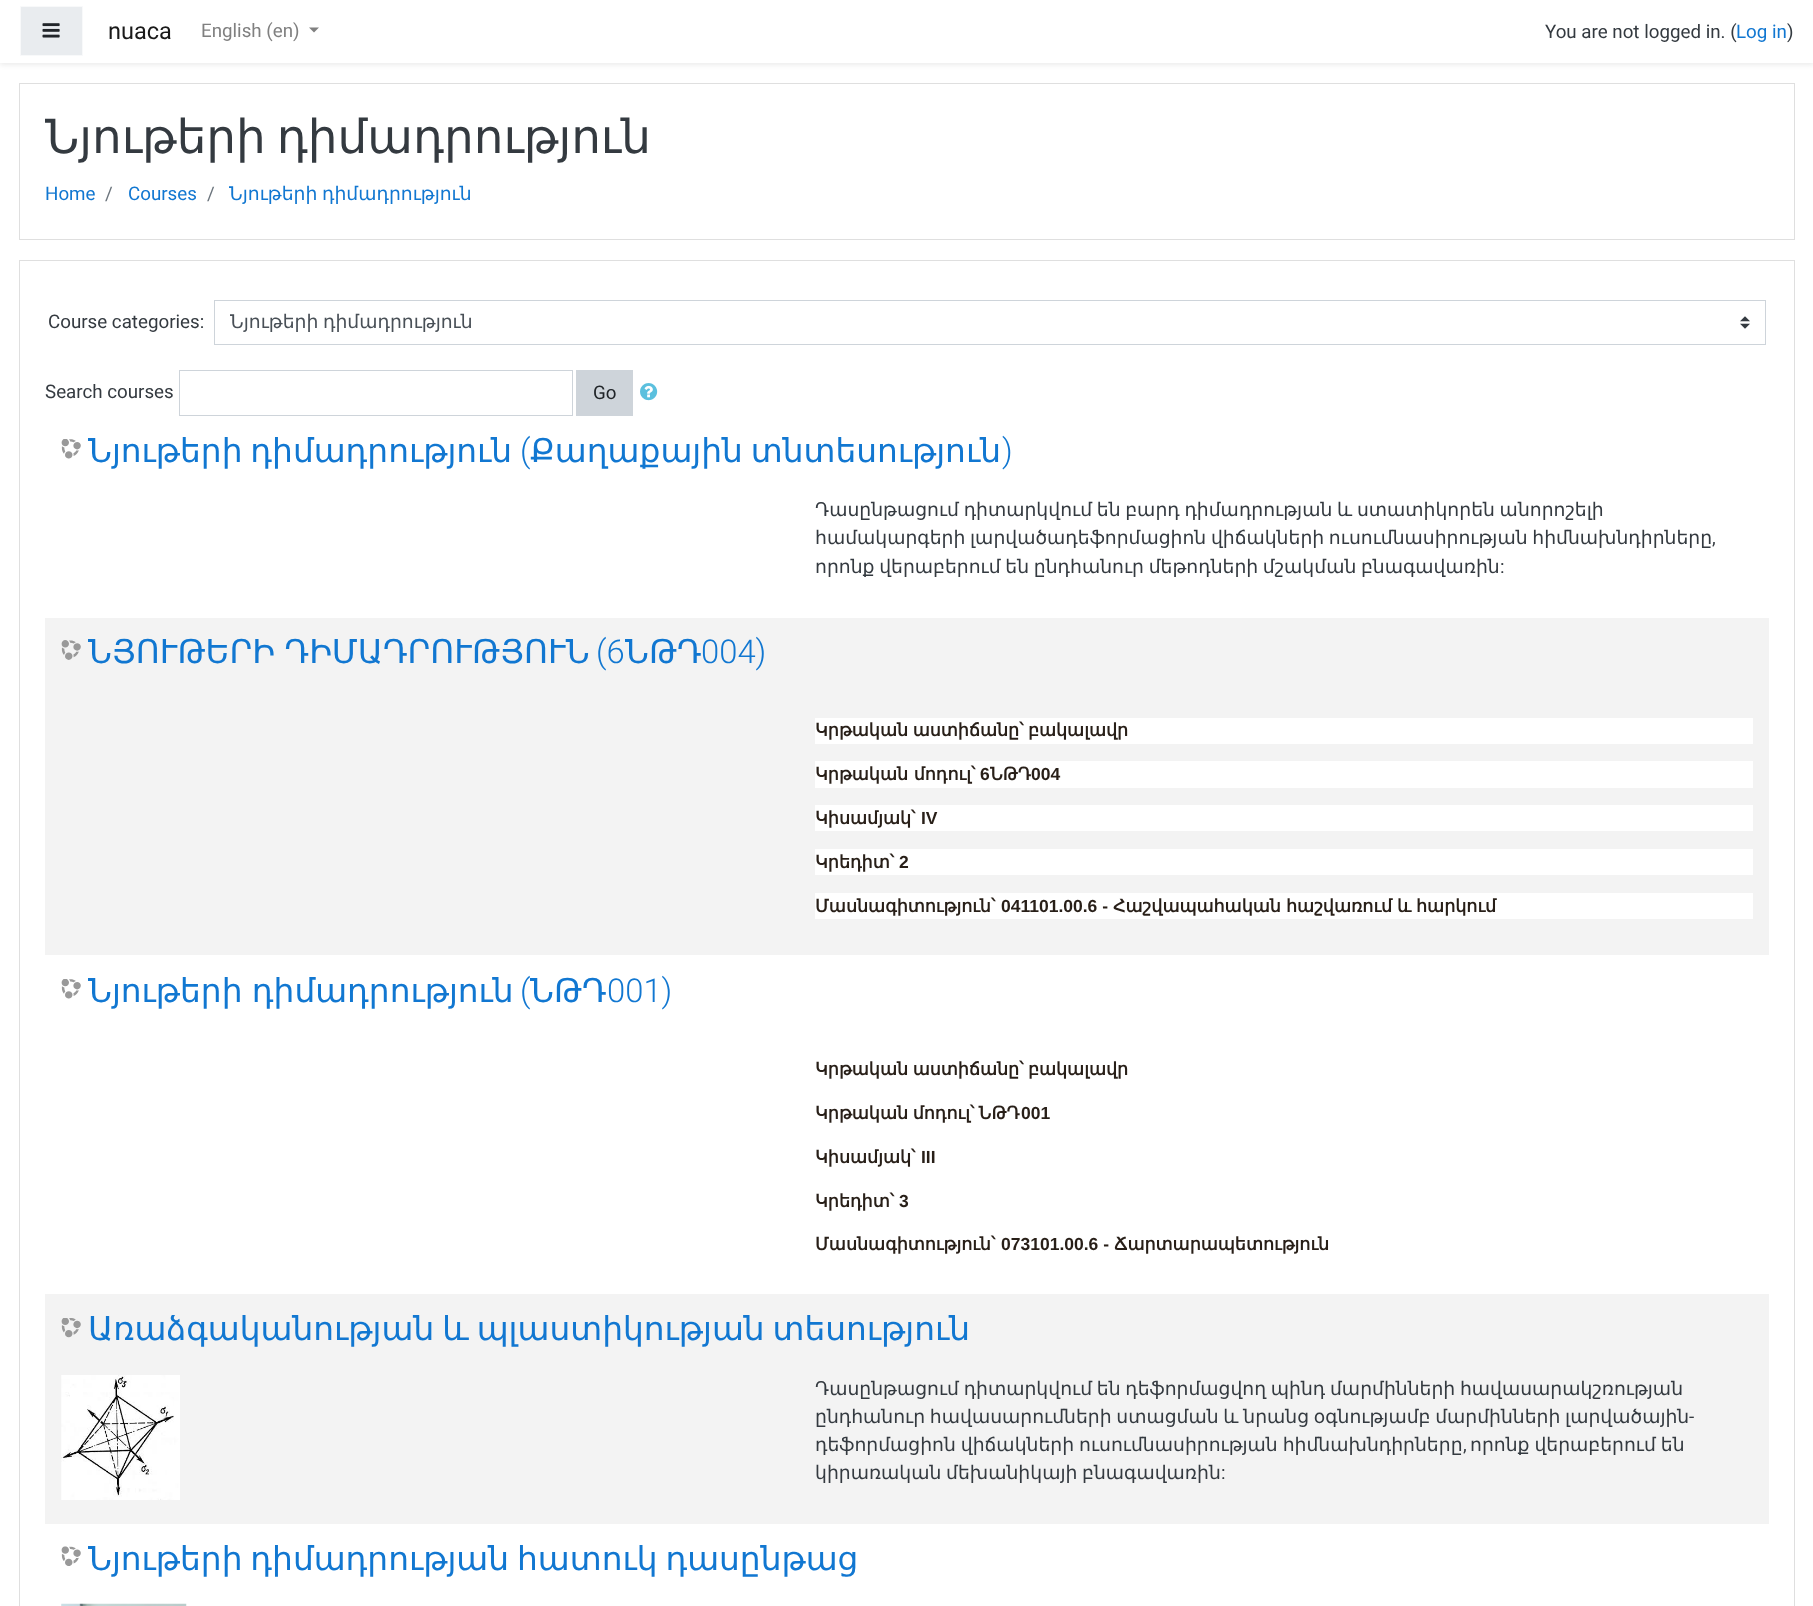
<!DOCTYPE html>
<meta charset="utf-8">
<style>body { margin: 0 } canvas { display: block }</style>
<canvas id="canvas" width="1813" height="1606"></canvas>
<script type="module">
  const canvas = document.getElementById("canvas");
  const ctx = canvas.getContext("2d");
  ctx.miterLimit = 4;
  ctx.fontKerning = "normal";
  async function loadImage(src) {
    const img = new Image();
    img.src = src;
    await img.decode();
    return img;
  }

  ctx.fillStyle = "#ffffff";
  ctx.fillRect(0, 0, 1813, 1606);
  ctx.fillStyle = "rgba(0, 0, 0, 0.08)";
  ctx.filter = "blur(2.5px)";
  ctx.beginPath();
  ctx.rect(0, 3, 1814, 62);
  ctx.fill();
  ctx.filter = "none";
  ctx.fillStyle = "#ffffff";
  ctx.fillRect(0, 0, 1813, 63);
  ctx.fillStyle = "#e9ecef";
  ctx.beginPath();
  ctx.rect(20.5, 6.5, 62, 49);
  ctx.fill();
  ctx.strokeStyle = "#f8f9fa";
  ctx.stroke();
  ctx.drawImage(await loadImage("img1.png"), 42, 23, 18, 15);
  ctx.font = "23.5px Roboto";
  ctx.fillStyle = "#1a1a1a";
  ctx.fillText("nuaca", 108, 39);
  ctx.font = "18.75px Roboto";
  ctx.fillStyle = "#808080";
  ctx.fillText("English (en)", 201, 37);
  ctx.beginPath();
  ctx.moveTo(309, 27.5);
  ctx.lineTo(319, 27.5);
  ctx.lineTo(314, 32.5);
  ctx.closePath();
  ctx.fill();
  ctx.fillStyle = "#343a40";
  ctx.fillText("You are not logged in. (", 1545, 38);
  ctx.fillStyle = "#1177d1";
  ctx.fillText("Log in", 1736, 38);
  ctx.fillStyle = "#343a40";
  ctx.fillText(")", 1787, 38);
  ctx.strokeStyle = "#dfdfdf";
  ctx.strokeRect(19.5, 83.5, 1775, 156);
  ctx.wordSpacing = "-4px";
  ctx.font = "46.9px DejaVu Sans";
  ctx.fillText("Նյութերի դիմադրություն", 45, 153);
  ctx.wordSpacing = "0px";
  ctx.font = "18.75px Roboto";
  ctx.fillStyle = "#1177d1";
  ctx.fillText("Home", 45, 200);
  ctx.fillStyle = "#6c757d";
  ctx.fillText("/", 105, 200);
  ctx.fillStyle = "#1177d1";
  ctx.fillText("Courses", 128, 200);
  ctx.fillStyle = "#6c757d";
  ctx.fillText("/", 207, 200);
  ctx.wordSpacing = "-1.25px";
  ctx.font = "18.75px DejaVu Sans";
  ctx.fillStyle = "#1177d1";
  ctx.fillText("Նյութերի դիմադրություն", 229, 200);
  ctx.strokeRect(19.5, 260.5, 1775, 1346);
  ctx.wordSpacing = "0px";
  ctx.font = "18.75px Roboto";
  ctx.fillStyle = "#343a40";
  ctx.fillText("Course categories:", 48, 328);
  ctx.drawImage(await loadImage("img2.png"), 1740, 316, 10, 13);
  ctx.strokeStyle = "#ced4da";
  ctx.strokeRect(214.5, 300.5, 1551, 44);
  ctx.wordSpacing = "-1.25px";
  ctx.font = "18.75px DejaVu Sans";
  ctx.fillStyle = "#495057";
  ctx.fillText("Նյութերի դիմադրություն", 230, 328);
  ctx.wordSpacing = "0px";
  ctx.font = "18.75px Roboto";
  ctx.fillStyle = "#343a40";
  ctx.fillText("Search courses", 45, 398);
  ctx.strokeRect(179.5, 370.5, 393, 45);
  ctx.fillStyle = "#ced4da";
  ctx.fillRect(576, 370, 57, 46);
  ctx.fillStyle = "#212529";
  ctx.fillText("Go", 593, 399);
  ctx.drawImage(await loadImage("img3.png"), 640, 383, 18, 18);
  ctx.drawImage(await loadImage("img4.png"), 61, 439, 20, 20);
  ctx.wordSpacing = "-2.5px";
  ctx.font = "32.8px DejaVu Sans";
  ctx.fillStyle = "#1177d1";
  ctx.fillText("Նյութերի դիմադրություն", 88, 462);
  ctx.wordSpacing = "0px";
  ctx.font = "300 32.8px Roboto";
  ctx.fillText("(", 520, 462);
  ctx.wordSpacing = "-2.5px";
  ctx.font = "32.8px DejaVu Sans";
  ctx.fillText("Քաղաքային տնտեսություն", 530, 462);
  ctx.wordSpacing = "0px";
  ctx.font = "300 32.8px Roboto";
  ctx.fillText(")", 1002, 462);
  ctx.wordSpacing = "-1.25px";
  ctx.font = "18.75px DejaVu Sans";
  ctx.fillStyle = "#343a40";
  ctx.fillText("Դասընթացում դիտարկվում են բարդ դիմադրության և ստատիկորեն անորոշելի", 815, 516);
  ctx.fillText("համակարգերի լարվածադեֆորմացիոն վիճակների ուսումնասիրության հիմնախնդիրները", 815, 544);
  ctx.wordSpacing = "0px";
  ctx.font = "18.75px Roboto";
  ctx.fillText(",", 1712, 544);
  ctx.wordSpacing = "-1.25px";
  ctx.font = "18.75px DejaVu Sans";
  ctx.fillText("որոնք վերաբերում են ընդհանուր մեթոդների մշակման բնագավառին", 815, 573);
  ctx.wordSpacing = "0px";
  ctx.font = "18.75px Roboto";
  ctx.fillText(":", 1500, 573);
  ctx.fillStyle = "#f3f3f3";
  ctx.fillRect(45, 618, 1724, 337);
  ctx.drawImage(await loadImage("img5.png"), 61, 640, 20, 20);
  ctx.wordSpacing = "-1px";
  ctx.font = "32.8px DejaVu Sans";
  ctx.fillStyle = "#1177d1";
  ctx.fillText("ՆՅՈՒԹԵՐԻ ԴԻՄԱԴՐՈՒԹՅՈՒՆ", 88, 663);
  ctx.wordSpacing = "0px";
  ctx.font = "300 32.8px Roboto";
  ctx.fillText("(6", 596, 663);
  ctx.font = "32.8px DejaVu Sans";
  ctx.fillText("ՆԹԴ", 625, 663);
  ctx.font = "300 32.8px Roboto";
  ctx.fillText("004)", 701, 663);
  ctx.fillStyle = "#ffffff";
  ctx.fillRect(815, 718, 938, 26);
  ctx.wordSpacing = "-1px";
  ctx.font = "bold 17.5px DejaVu Sans";
  ctx.fillStyle = "#281f18";
  ctx.fillText("Կրթական աստիճանը՝ բակալավր", 815, 736);
  ctx.fillStyle = "#ffffff";
  ctx.fillRect(815, 761, 938, 27);
  ctx.wordSpacing = "0px";
  ctx.fillStyle = "#281f18";
  ctx.fillText("Կրթական մոդուլ՝", 815, 780);
  ctx.font = "bold 17.5px Liberation Sans";
  ctx.fillText("6", 980, 780);
  ctx.font = "bold 17.5px DejaVu Sans";
  ctx.fillText("ՆԹԴ", 990, 780);
  ctx.font = "bold 17.5px Liberation Sans";
  ctx.fillText("004", 1031, 780);
  ctx.fillStyle = "#ffffff";
  ctx.fillRect(815, 805, 938, 26);
  ctx.font = "bold 17.5px DejaVu Sans";
  ctx.fillStyle = "#281f18";
  ctx.fillText("Կիսամյակ՝", 815, 824);
  ctx.font = "bold 17.5px Liberation Sans";
  ctx.fillText("IV", 921, 824);
  ctx.fillStyle = "#ffffff";
  ctx.fillRect(815, 849, 938, 26);
  ctx.font = "bold 17.5px DejaVu Sans";
  ctx.fillStyle = "#281f18";
  ctx.fillText("Կրեդիտ՝", 815, 868);
  ctx.font = "bold 17.5px Liberation Sans";
  ctx.fillText("2", 899, 868);
  ctx.fillStyle = "#ffffff";
  ctx.fillRect(815, 893, 938, 26);
  ctx.font = "bold 17.5px DejaVu Sans";
  ctx.fillStyle = "#281f18";
  ctx.fillText("Մասնագիտություն՝", 815, 912);
  ctx.font = "bold 17.5px Liberation Sans";
  ctx.fillText("041101.00.6 -", 1001, 912);
  ctx.font = "bold 17.5px DejaVu Sans";
  ctx.fillText("Հաշվապահական", 1113, 912);
  ctx.fillText("հաշվառում", 1286, 912);
  ctx.fillText("և", 1397, 912);
  ctx.fillText("հարկում", 1416, 912);
  ctx.drawImage(await loadImage("img4.png"), 61, 979, 20, 20);
  ctx.wordSpacing = "-1px";
  ctx.font = "32.8px DejaVu Sans";
  ctx.fillStyle = "#1177d1";
  ctx.fillText("Նյութերի դիմադրություն", 88, 1002);
  ctx.wordSpacing = "0px";
  ctx.font = "300 32.8px Roboto";
  ctx.fillText("(", 520, 1002);
  ctx.font = "32.8px DejaVu Sans";
  ctx.fillText("ՆԹԴ", 530, 1002);
  ctx.font = "300 32.8px Roboto";
  ctx.fillText("001)", 607, 1002);
  ctx.wordSpacing = "-1px";
  ctx.font = "bold 17.5px DejaVu Sans";
  ctx.fillStyle = "#281f18";
  ctx.fillText("Կրթական աստիճանը՝ բակալավր", 815, 1075);
  ctx.fillText("Կրթական մոդուլ՝ ՆԹԴ", 815, 1119);
  ctx.wordSpacing = "0px";
  ctx.font = "bold 17.5px Liberation Sans";
  ctx.fillText("001", 1021, 1119);
  ctx.font = "bold 17.5px DejaVu Sans";
  ctx.fillText("Կիսամյակ՝", 815, 1163);
  ctx.font = "bold 17.5px Liberation Sans";
  ctx.fillText("III", 921, 1163);
  ctx.font = "bold 17.5px DejaVu Sans";
  ctx.fillText("Կրեդիտ՝", 815, 1207);
  ctx.font = "bold 17.5px Liberation Sans";
  ctx.fillText("3", 899, 1207);
  ctx.font = "bold 17.5px DejaVu Sans";
  ctx.fillText("Մասնագիտություն՝", 815, 1250);
  ctx.font = "bold 17.5px Liberation Sans";
  ctx.fillText("073101.00.6 -", 1001, 1250);
  ctx.font = "bold 17.5px DejaVu Sans";
  ctx.fillText("Ճարտարապետություն", 1114, 1250);
  ctx.fillStyle = "#f3f3f3";
  ctx.fillRect(45, 1294, 1724, 230);
  ctx.drawImage(await loadImage("img6.png"), 61, 1318, 20, 20);
  ctx.wordSpacing = "-2.5px";
  ctx.font = "32.8px DejaVu Sans";
  ctx.fillStyle = "#1177d1";
  ctx.fillText("Առաձգականության և պլաստիկության տեսություն", 88, 1340);
  ctx.drawImage(await loadImage("img7.png"), 61, 1375, 119, 125);
  ctx.wordSpacing = "-1.25px";
  ctx.font = "18.75px DejaVu Sans";
  ctx.fillStyle = "#343a40";
  ctx.fillText("Դասընթացում դիտարկվում են դեֆորմացվող պինդ մարմինների հավասարակշռության", 815, 1395);
  ctx.fillText("ընդհանուր հավասարումների ստացման և նրանց օգնությամբ մարմինների լարվածային", 815, 1423);
  ctx.wordSpacing = "0px";
  ctx.font = "18.75px Roboto";
  ctx.fillText("-", 1689, 1423);
  ctx.wordSpacing = "-1px";
  ctx.font = "18.75px DejaVu Sans";
  ctx.fillText("դեֆորմացիոն վիճակների ուսումնասիրության հիմնախնդիրները", 815, 1451);
  ctx.wordSpacing = "0px";
  ctx.font = "18.75px Roboto";
  ctx.fillText(",", 1463, 1451);
  ctx.wordSpacing = "-1px";
  ctx.font = "18.75px DejaVu Sans";
  ctx.fillText("որոնք վերաբերում են", 1470, 1451);
  ctx.wordSpacing = "-1.25px";
  ctx.fillText("կիրառական մեխանիկայի բնագավառին", 815, 1479);
  ctx.wordSpacing = "0px";
  ctx.font = "18.75px Roboto";
  ctx.fillText(":", 1221, 1479);
  ctx.drawImage(await loadImage("img8.png"), 61, 1546, 20, 20);
  ctx.wordSpacing = "-2.5px";
  ctx.font = "32.8px DejaVu Sans";
  ctx.fillStyle = "#1177d1";
  ctx.fillText("Նյութերի դիմադրության հատուկ դասընթաց", 88, 1570);
  ctx.drawImage(await loadImage("img9.png"), 61, 1603, 126, 3);
</script>
